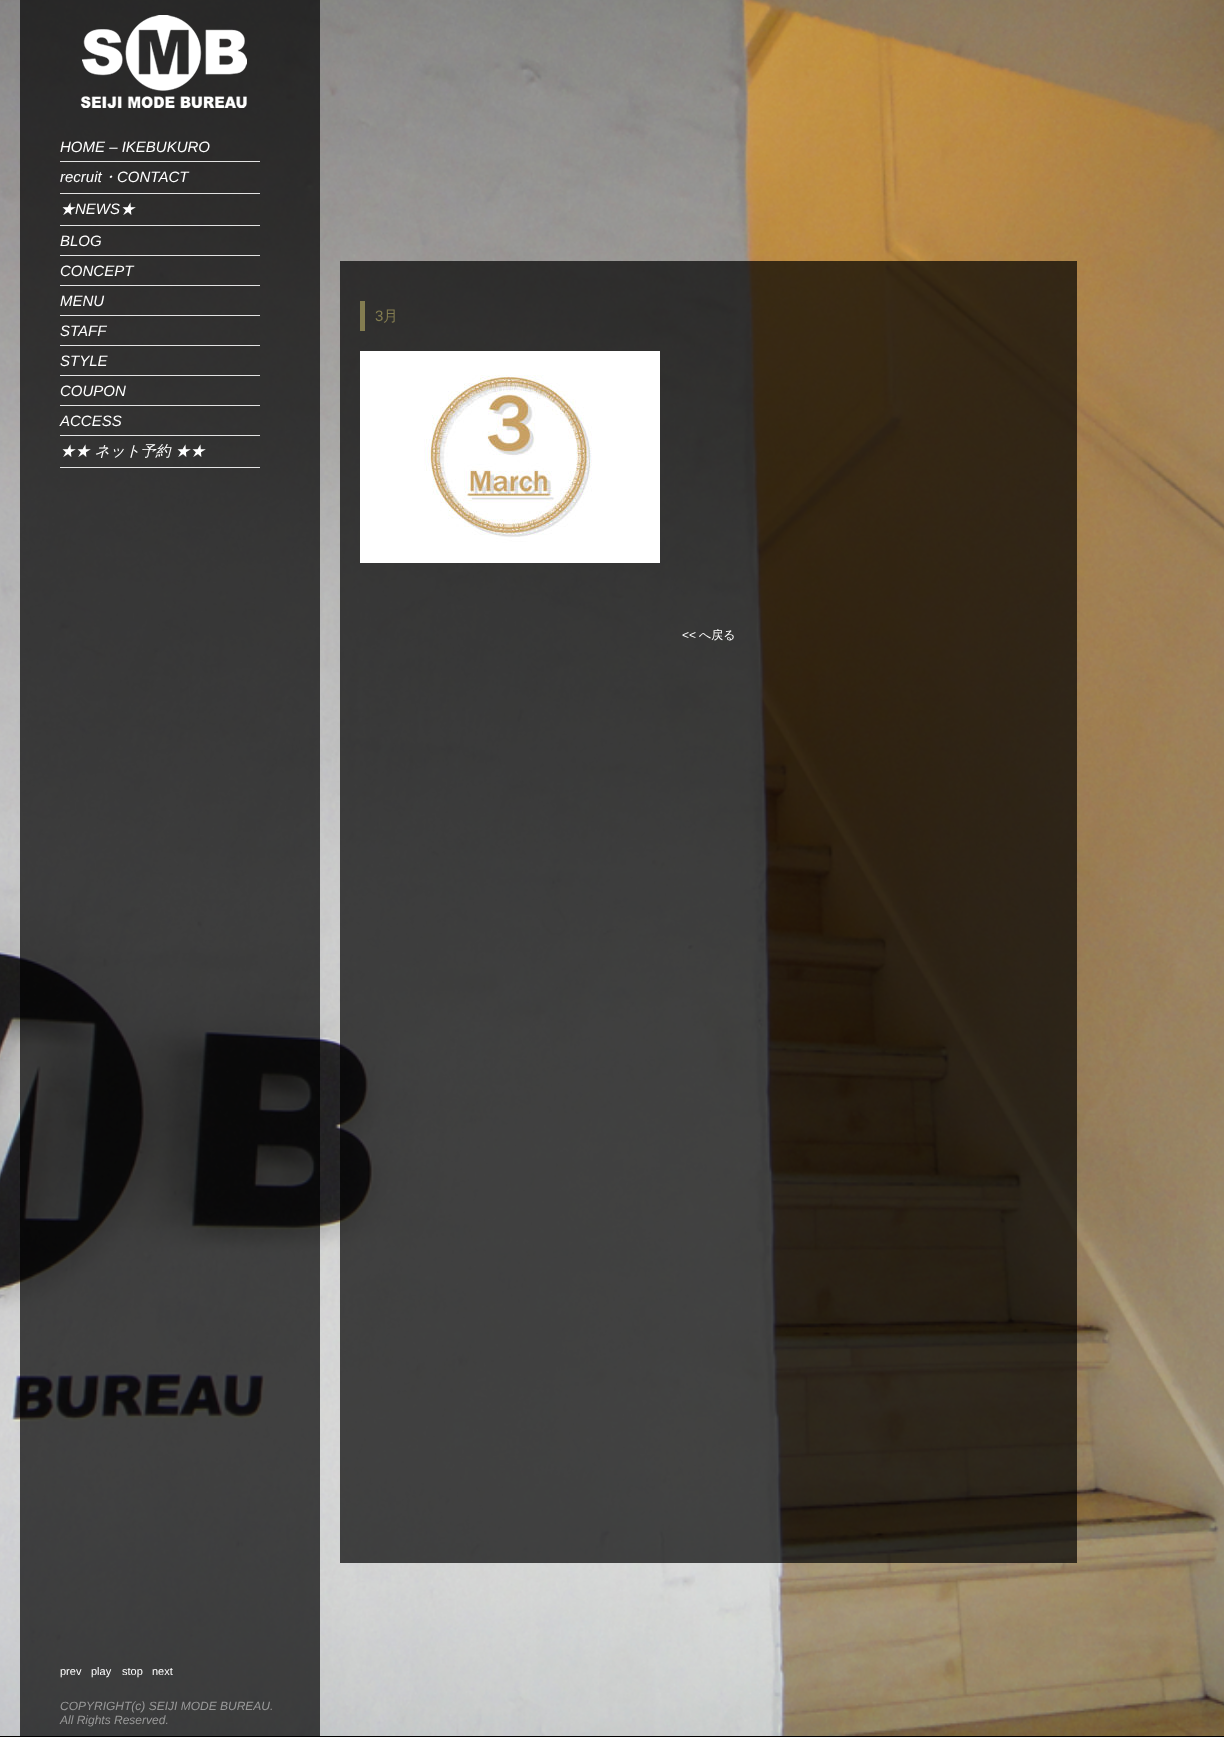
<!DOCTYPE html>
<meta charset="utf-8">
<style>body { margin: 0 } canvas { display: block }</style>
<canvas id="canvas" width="1224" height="1737"></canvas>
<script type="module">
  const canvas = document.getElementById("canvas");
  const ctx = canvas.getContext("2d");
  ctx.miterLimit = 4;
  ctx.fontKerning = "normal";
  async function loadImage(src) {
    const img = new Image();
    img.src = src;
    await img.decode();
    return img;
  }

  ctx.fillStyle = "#000000";
  ctx.fillRect(0, 0, 1224, 1737);
  ctx.drawImage(await loadImage("img1.png"), 0, 0, 1224, 1736);
  ctx.fillStyle = "rgba(0, 0, 0, 0.7)";
  ctx.fillRect(20, 0, 300, 1736);
  ctx.drawImage(await loadImage("img2.png"), 80, 15, 167, 93);
  ctx.fillStyle = "#e3e3e3";
  ctx.fillRect(60, 161, 200, 1);
  ctx.font = "italic 15px Liberation Sans";
  ctx.fillStyle = "#ffffff";
  ctx.fillText("HOME – IKEBUKURO", 60, 152);
  ctx.fillStyle = "#e3e3e3";
  ctx.fillRect(60, 193, 200, 1);
  ctx.fillStyle = "#ffffff";
  ctx.fillText("recruit", 60, 182);
  ctx.font = "italic 500 15px WenQuanYi Zen Hei";
  ctx.fillText("・", 102, 182);
  ctx.font = "italic 15px Liberation Sans";
  ctx.fillText("CONTACT", 117, 182);
  ctx.fillStyle = "#e3e3e3";
  ctx.fillRect(60, 225, 200, 1);
  ctx.font = "italic 500 15px WenQuanYi Zen Hei";
  ctx.fillStyle = "#ffffff";
  ctx.fillText("★", 60, 214);
  ctx.font = "italic 15px Liberation Sans";
  ctx.fillText("NEWS", 75, 214);
  ctx.font = "italic 500 15px WenQuanYi Zen Hei";
  ctx.fillText("★", 120, 214);
  ctx.fillStyle = "#e3e3e3";
  ctx.fillRect(60, 255, 200, 1);
  ctx.font = "italic 15px Liberation Sans";
  ctx.fillStyle = "#ffffff";
  ctx.fillText("BLOG", 60, 246);
  ctx.fillStyle = "#e3e3e3";
  ctx.fillRect(60, 285, 200, 1);
  ctx.fillStyle = "#ffffff";
  ctx.fillText("CONCEPT", 60, 276);
  ctx.fillStyle = "#e3e3e3";
  ctx.fillRect(60, 315, 200, 1);
  ctx.fillStyle = "#ffffff";
  ctx.fillText("MENU", 60, 306);
  ctx.fillStyle = "#e3e3e3";
  ctx.fillRect(60, 345, 200, 1);
  ctx.fillStyle = "#ffffff";
  ctx.fillText("STAFF", 60, 336);
  ctx.fillStyle = "#e3e3e3";
  ctx.fillRect(60, 375, 200, 1);
  ctx.fillStyle = "#ffffff";
  ctx.fillText("STYLE", 60, 366);
  ctx.fillStyle = "#e3e3e3";
  ctx.fillRect(60, 405, 200, 1);
  ctx.fillStyle = "#ffffff";
  ctx.fillText("COUPON", 60, 396);
  ctx.fillStyle = "#e3e3e3";
  ctx.fillRect(60, 435, 200, 1);
  ctx.fillStyle = "#ffffff";
  ctx.fillText("ACCESS", 60, 426);
  ctx.fillStyle = "#e3e3e3";
  ctx.fillRect(60, 467, 200, 1);
  ctx.font = "italic 500 15px WenQuanYi Zen Hei";
  ctx.fillStyle = "#ffffff";
  ctx.fillText("★★ ネット予約 ★★", 60, 456);
  ctx.font = "italic 12px Liberation Sans";
  ctx.fillStyle = "#999999";
  ctx.fillText("COPYRIGHT(c) SEIJI MODE BUREAU.", 60, 1710);
  ctx.fillText("All Rights Reserved.", 60, 1724);
  ctx.fillStyle = "rgba(0, 0, 0, 0.7)";
  ctx.fillRect(340, 261, 737, 1302);
  ctx.fillStyle = "#837c50";
  ctx.fillRect(360, 301, 5, 30);
  ctx.font = "15px Liberation Sans";
  ctx.fillText("3", 375, 321);
  ctx.font = "500 15px WenQuanYi Zen Hei";
  ctx.fillText("月", 383, 321);
  ctx.drawImage(await loadImage("img3.png"), 360, 351, 300, 212);
  ctx.font = "12px Liberation Sans";
  ctx.fillStyle = "#ffffff";
  ctx.fillText("<<", 682, 639);
  ctx.font = "500 12px WenQuanYi Zen Hei";
  ctx.fillText("へ戻る", 699, 639);
  ctx.font = "11px Liberation Sans";
  ctx.fillText("prev", 60, 1675);
  ctx.fillText("play", 91, 1675);
  ctx.fillText("stop", 122, 1675);
  ctx.fillText("next", 152, 1675);
</script>
